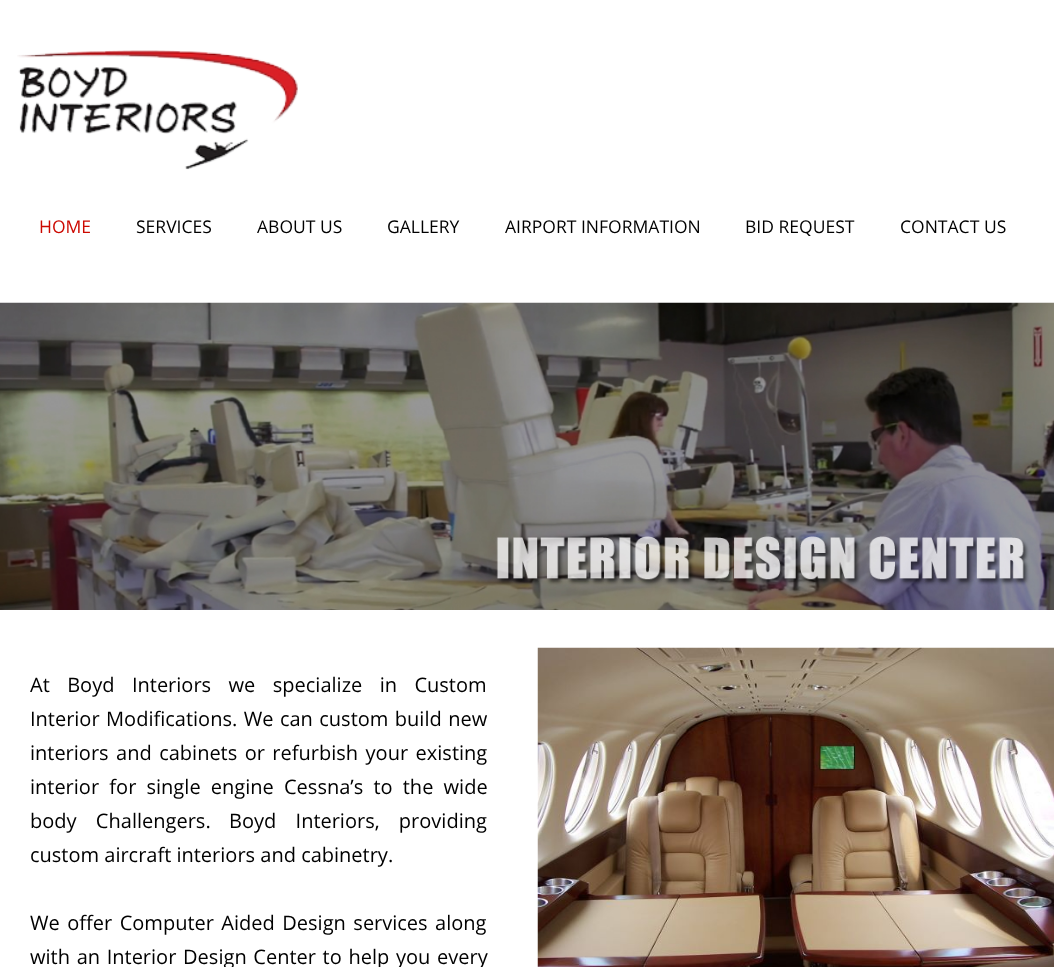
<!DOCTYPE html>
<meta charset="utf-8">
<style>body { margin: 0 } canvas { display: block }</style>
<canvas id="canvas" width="1054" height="967"></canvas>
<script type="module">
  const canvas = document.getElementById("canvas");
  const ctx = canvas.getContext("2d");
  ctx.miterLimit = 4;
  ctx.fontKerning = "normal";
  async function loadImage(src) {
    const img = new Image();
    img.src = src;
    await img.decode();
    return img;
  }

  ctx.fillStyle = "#ffffff";
  ctx.fillRect(0, 0, 1054, 967);
  ctx.drawImage(await loadImage("img1.png"), 17, 50, 281, 120);
  ctx.font = "17.5px Open Sans";
  ctx.fillStyle = "#cc0900";
  ctx.fillText("HOME", 39, 233);
  ctx.fillStyle = "#000000";
  ctx.fillText("SERVICES", 136, 233);
  ctx.fillText("ABOUT US", 257, 233);
  ctx.fillText("GALLERY", 387, 233);
  ctx.fillText("AIRPORT INFORMATION", 505, 233);
  ctx.fillText("BID REQUEST", 745, 233);
  ctx.fillText("CONTACT US", 900, 233);
  ctx.drawImage(await loadImage("img2.png"), 0, 302, 1054, 308);
  ctx.wordSpacing = "12.25px";
  ctx.font = "20px Open Sans";
  ctx.fillText("At Boyd Interiors we specialize in Custom", 30, 692);
  ctx.wordSpacing = "1.25px";
  ctx.fillText("Interior Modifications. We can custom build new", 30, 726);
  ctx.wordSpacing = "2.25px";
  ctx.fillText("interiors and cabinets or refurbish your existing", 30, 760);
  ctx.wordSpacing = "5px";
  ctx.fillText("interior for single engine Cessna’s to the wide", 30, 794);
  ctx.wordSpacing = "14px";
  ctx.fillText("body Challengers.", 30, 828);
  ctx.fillText("Boyd Interiors, providing", 229, 828);
  ctx.wordSpacing = "0px";
  ctx.fillText("custom aircraft interiors and cabinetry.", 30, 862);
  ctx.wordSpacing = "2.25px";
  ctx.fillText("We offer Computer Aided Design services along", 30, 930);
  ctx.wordSpacing = "1.5px";
  ctx.fillText("with an Interior Design Center to help you every", 30, 964);
  ctx.drawImage(await loadImage("img3.png"), 537, 647, 517, 320);
</script>
